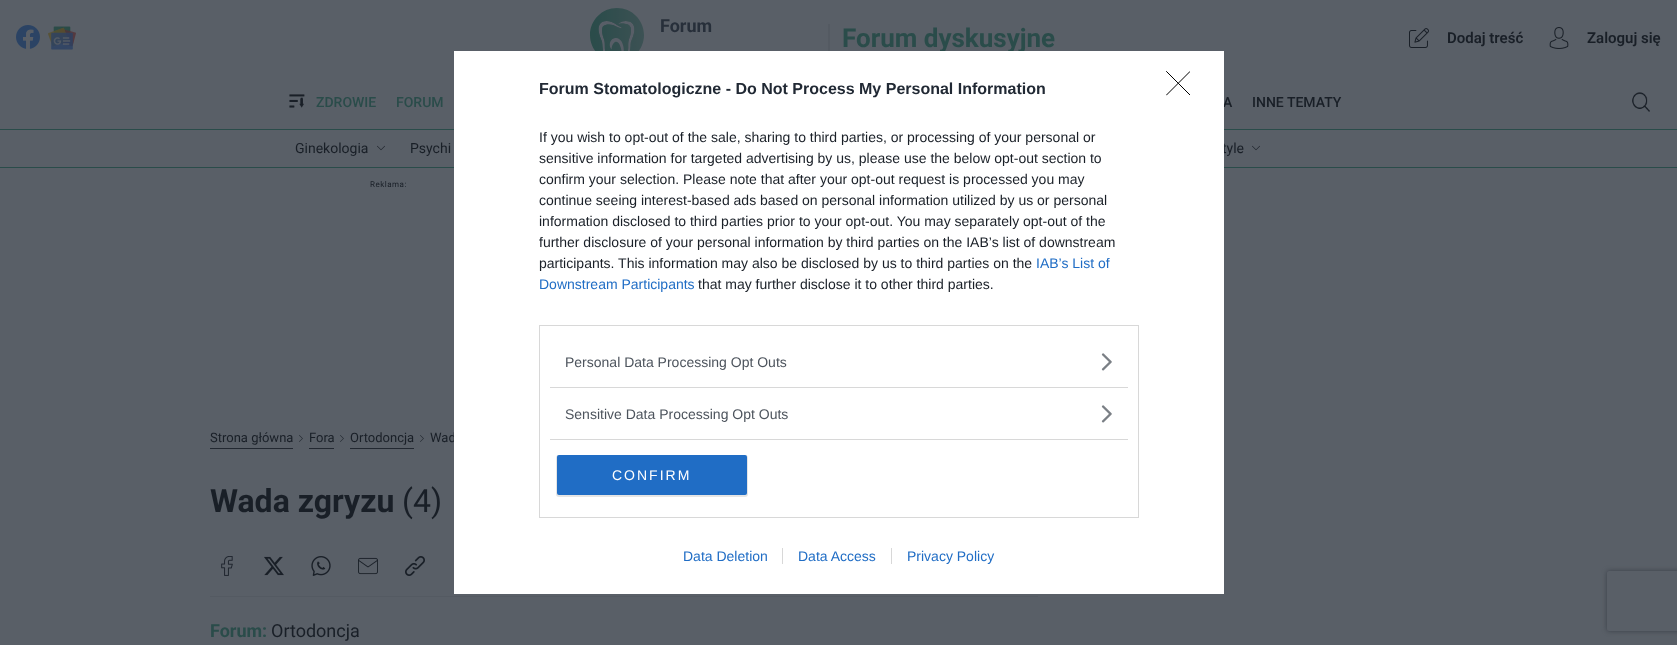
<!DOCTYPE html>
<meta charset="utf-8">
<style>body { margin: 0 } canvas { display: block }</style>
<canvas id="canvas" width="1677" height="645"></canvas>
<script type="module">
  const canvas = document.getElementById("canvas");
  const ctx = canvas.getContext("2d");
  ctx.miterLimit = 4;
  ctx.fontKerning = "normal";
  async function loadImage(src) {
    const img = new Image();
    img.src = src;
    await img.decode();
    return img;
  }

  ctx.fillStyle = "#595f67";
  ctx.fillRect(0, 0, 1677, 645);
  ctx.drawImage(await loadImage("img1.png"), 16, 25, 24, 24);
  ctx.drawImage(await loadImage("img2.png"), 48, 26, 28, 24);
  ctx.drawImage(await loadImage("img3.png"), 590, 8, 54, 43);
  ctx.font = "bold 18px Roboto";
  ctx.fillStyle = "#272f3a";
  ctx.fillText("Forum", 660, 32);
  ctx.fillStyle = "#545a62";
  ctx.fillRect(828, 24, 2, 28);
  ctx.font = "bold 26px Roboto";
  ctx.fillStyle = "#2a4c4a";
  ctx.fillText("Forum dyskusyjne", 842, 47);
  ctx.drawImage(await loadImage("img4.png"), 1409, 28, 20, 20);
  ctx.font = "600 15px Roboto";
  ctx.fillStyle = "#191f27";
  ctx.fillText("Dodaj treść", 1447, 43);
  ctx.drawImage(await loadImage("img5.png"), 1549, 27, 20, 22);
  ctx.fillText("Zaloguj się", 1587, 43);
  ctx.fillStyle = "#2a4c4a";
  ctx.fillRect(0, 129, 1677, 1);
  ctx.drawImage(await loadImage("img6.png"), 289, 94, 16, 14);
  ctx.font = "500 14px Roboto";
  ctx.fillText("ZDROWIE", 316, 107);
  ctx.fillRect(0, 167, 1677, 1);
  ctx.font = "14px Roboto";
  ctx.fillStyle = "#191f27";
  ctx.fillText("Ginekologia", 295, 153);
  ctx.drawImage(await loadImage("img7.png"), 377, 145, 8, 6);
  ctx.fillText("Psychi", 410, 153);
  ctx.fillText("tyle", 1222, 153);
  ctx.drawImage(await loadImage("img7.png"), 1252, 145, 8, 6);
  ctx.font = "500 14px Roboto";
  ctx.fillStyle = "#2a4c4a";
  ctx.fillText("FORUM", 396, 107);
  ctx.fillStyle = "#191f27";
  ctx.fillText("A", 1223, 107);
  ctx.fillText("INNE TEMATY", 1252, 107);
  ctx.drawImage(await loadImage("img8.png"), 1632, 92, 18, 20);
  ctx.letterSpacing = "0.5px";
  ctx.font = "8px Roboto";
  ctx.fillText("Reklama:", 370, 187);
  ctx.fillStyle = "#222831";
  ctx.fillRect(210, 448, 83, 1);
  ctx.letterSpacing = "0px";
  ctx.font = "13px Roboto";
  ctx.fillStyle = "#191f27";
  ctx.fillText("Strona główna", 210, 442);
  ctx.drawImage(await loadImage("img9.png"), 299, 435, 4, 7);
  ctx.fillStyle = "#222831";
  ctx.fillRect(309, 448, 25, 1);
  ctx.fillStyle = "#191f27";
  ctx.fillText("Fora", 309, 442);
  ctx.drawImage(await loadImage("img9.png"), 340, 435, 4, 7);
  ctx.fillStyle = "#222831";
  ctx.fillRect(350, 448, 64, 1);
  ctx.fillStyle = "#191f27";
  ctx.fillText("Ortodoncja", 350, 442);
  ctx.drawImage(await loadImage("img9.png"), 420, 435, 4, 7);
  ctx.fillText("Wad", 430, 442);
  ctx.fillStyle = "#545a62";
  ctx.fillRect(210, 596, 828, 1);
  ctx.font = "bold 32px Roboto";
  ctx.fillStyle = "#191f27";
  ctx.fillText("Wada zgryzu", 210, 512);
  ctx.font = "32px Roboto";
  ctx.fillText("(4)", 402, 512);
  ctx.drawImage(await loadImage("img10.png"), 221, 556, 12, 20);
  ctx.drawImage(await loadImage("img11.png"), 264, 556, 20, 20);
  ctx.drawImage(await loadImage("img12.png"), 311, 556, 20, 20);
  ctx.drawImage(await loadImage("img13.png"), 358, 557, 20, 18);
  ctx.drawImage(await loadImage("img14.png"), 405, 556, 20, 20);
  ctx.font = "bold 18px Roboto";
  ctx.fillStyle = "#2a4c4a";
  ctx.fillText("Forum:", 210, 637);
  ctx.font = "18px Roboto";
  ctx.fillStyle = "#191f27";
  ctx.fillText("Ortodoncja", 271, 637);
  ctx.fillStyle = "#ffffff";
  ctx.fillRect(454, 51, 770, 543);
  ctx.font = "bold 16px Liberation Sans";
  ctx.fillStyle = "#212934";
  ctx.fillText("Forum Stomatologiczne - Do Not Process My Personal Information", 539, 94);
  ctx.font = "14px Liberation Sans";
  ctx.fillStyle = "#191f27";
  ctx.fillText("If you wish to opt-out of the sale, sharing to third parties, or processing of your personal or", 539, 142);
  ctx.fillText("sensitive information for targeted advertising by us, please use the below opt-out section to", 539, 163);
  ctx.fillText("confirm your selection. Please note that after your opt-out request is processed you may", 539, 184);
  ctx.fillText("continue seeing interest-based ads based on personal information utilized by us or personal", 539, 205);
  ctx.fillText("information disclosed to third parties prior to your opt-out. You may separately opt-out of the", 539, 226);
  ctx.fillText("further disclosure of your personal information by third parties on the IAB’s list of downstream", 539, 247);
  ctx.fillText("participants. This information may also be disclosed by us to third parties on the", 539, 268);
  ctx.fillStyle = "#206dc5";
  ctx.fillText("IAB’s List of", 1036, 268);
  ctx.fillText("Downstream Participants", 539, 289);
  ctx.fillStyle = "#191f27";
  ctx.fillText("that may further disclose it to other third parties.", 698, 289);
  ctx.strokeStyle = "#d8d8d8";
  ctx.strokeRect(539.5, 325.5, 599, 192);
  ctx.fillStyle = "#4d545d";
  ctx.fillText("Personal Data Processing Opt Outs", 565, 367);
  ctx.drawImage(await loadImage("img15.png"), 1101, 353, 11, 18);
  ctx.fillStyle = "#d8d8d8";
  ctx.fillRect(550, 387, 578, 1);
  ctx.fillRect(550, 439, 578, 1);
  ctx.fillStyle = "#4d545d";
  ctx.fillText("Sensitive Data Processing Opt Outs", 565, 419);
  ctx.drawImage(await loadImage("img15.png"), 1101, 405, 11, 18);
  ctx.fillStyle = "rgba(0, 0, 0, 0.1)";
  ctx.filter = "blur(0.5px)";
  ctx.beginPath();
  ctx.roundRect(556, 455, 192, 42, 3);
  ctx.fill();
  ctx.filter = "none";
  ctx.fillStyle = "#206dc5";
  ctx.beginPath();
  ctx.roundRect(557, 455, 190, 40, 2);
  ctx.fill();
  ctx.letterSpacing = "2px";
  ctx.fillStyle = "#ffffff";
  ctx.fillText("CONFIRM", 612, 480);
  ctx.save();
  ctx.beginPath();
  ctx.rect(1166, 71, 24, 25);
  ctx.clip();
  ctx.beginPath();
  ctx.moveTo(1166.5, 71.5);
  ctx.lineTo(1190, 95);
  ctx.moveTo(1190, 71.5);
  ctx.lineTo(1166.5, 95);
  ctx.strokeStyle = "#000000";
  ctx.lineCap = "round";
  ctx.lineJoin = "round";
  ctx.stroke();
  ctx.restore();
  ctx.letterSpacing = "0px";
  ctx.fillStyle = "#206dc5";
  ctx.fillText("Data Deletion", 683, 561);
  ctx.fillText("Data Access", 798, 561);
  ctx.fillStyle = "#d8d8d8";
  ctx.fillRect(782, 548, 1, 16);
  ctx.fillStyle = "#206dc5";
  ctx.fillText("Privacy Policy", 907, 561);
  ctx.fillStyle = "#d8d8d8";
  ctx.fillRect(891, 548, 1, 16);
  ctx.save();
  ctx.beginPath();
  ctx.moveTo(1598, 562);
  ctx.lineTo(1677, 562);
  ctx.lineTo(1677, 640);
  ctx.lineTo(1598, 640);
  ctx.closePath();
  ctx.moveTo(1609, 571);
  ctx.lineTo(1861, 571);
  ctx.bezierCurveTo(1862, 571, 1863, 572, 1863, 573);
  ctx.lineTo(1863, 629);
  ctx.bezierCurveTo(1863, 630, 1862, 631, 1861, 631);
  ctx.lineTo(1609, 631);
  ctx.bezierCurveTo(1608, 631, 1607, 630, 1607, 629);
  ctx.lineTo(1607, 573);
  ctx.bezierCurveTo(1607, 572, 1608, 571, 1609, 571);
  ctx.closePath();
  ctx.clip("evenodd");
  ctx.fillStyle = "#393f47";
  ctx.filter = "blur(2.5px)";
  ctx.beginPath();
  ctx.roundRect(1607, 571, 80, 60, 2);
  ctx.fill();
  ctx.filter = "none";
  ctx.restore();
</script>
